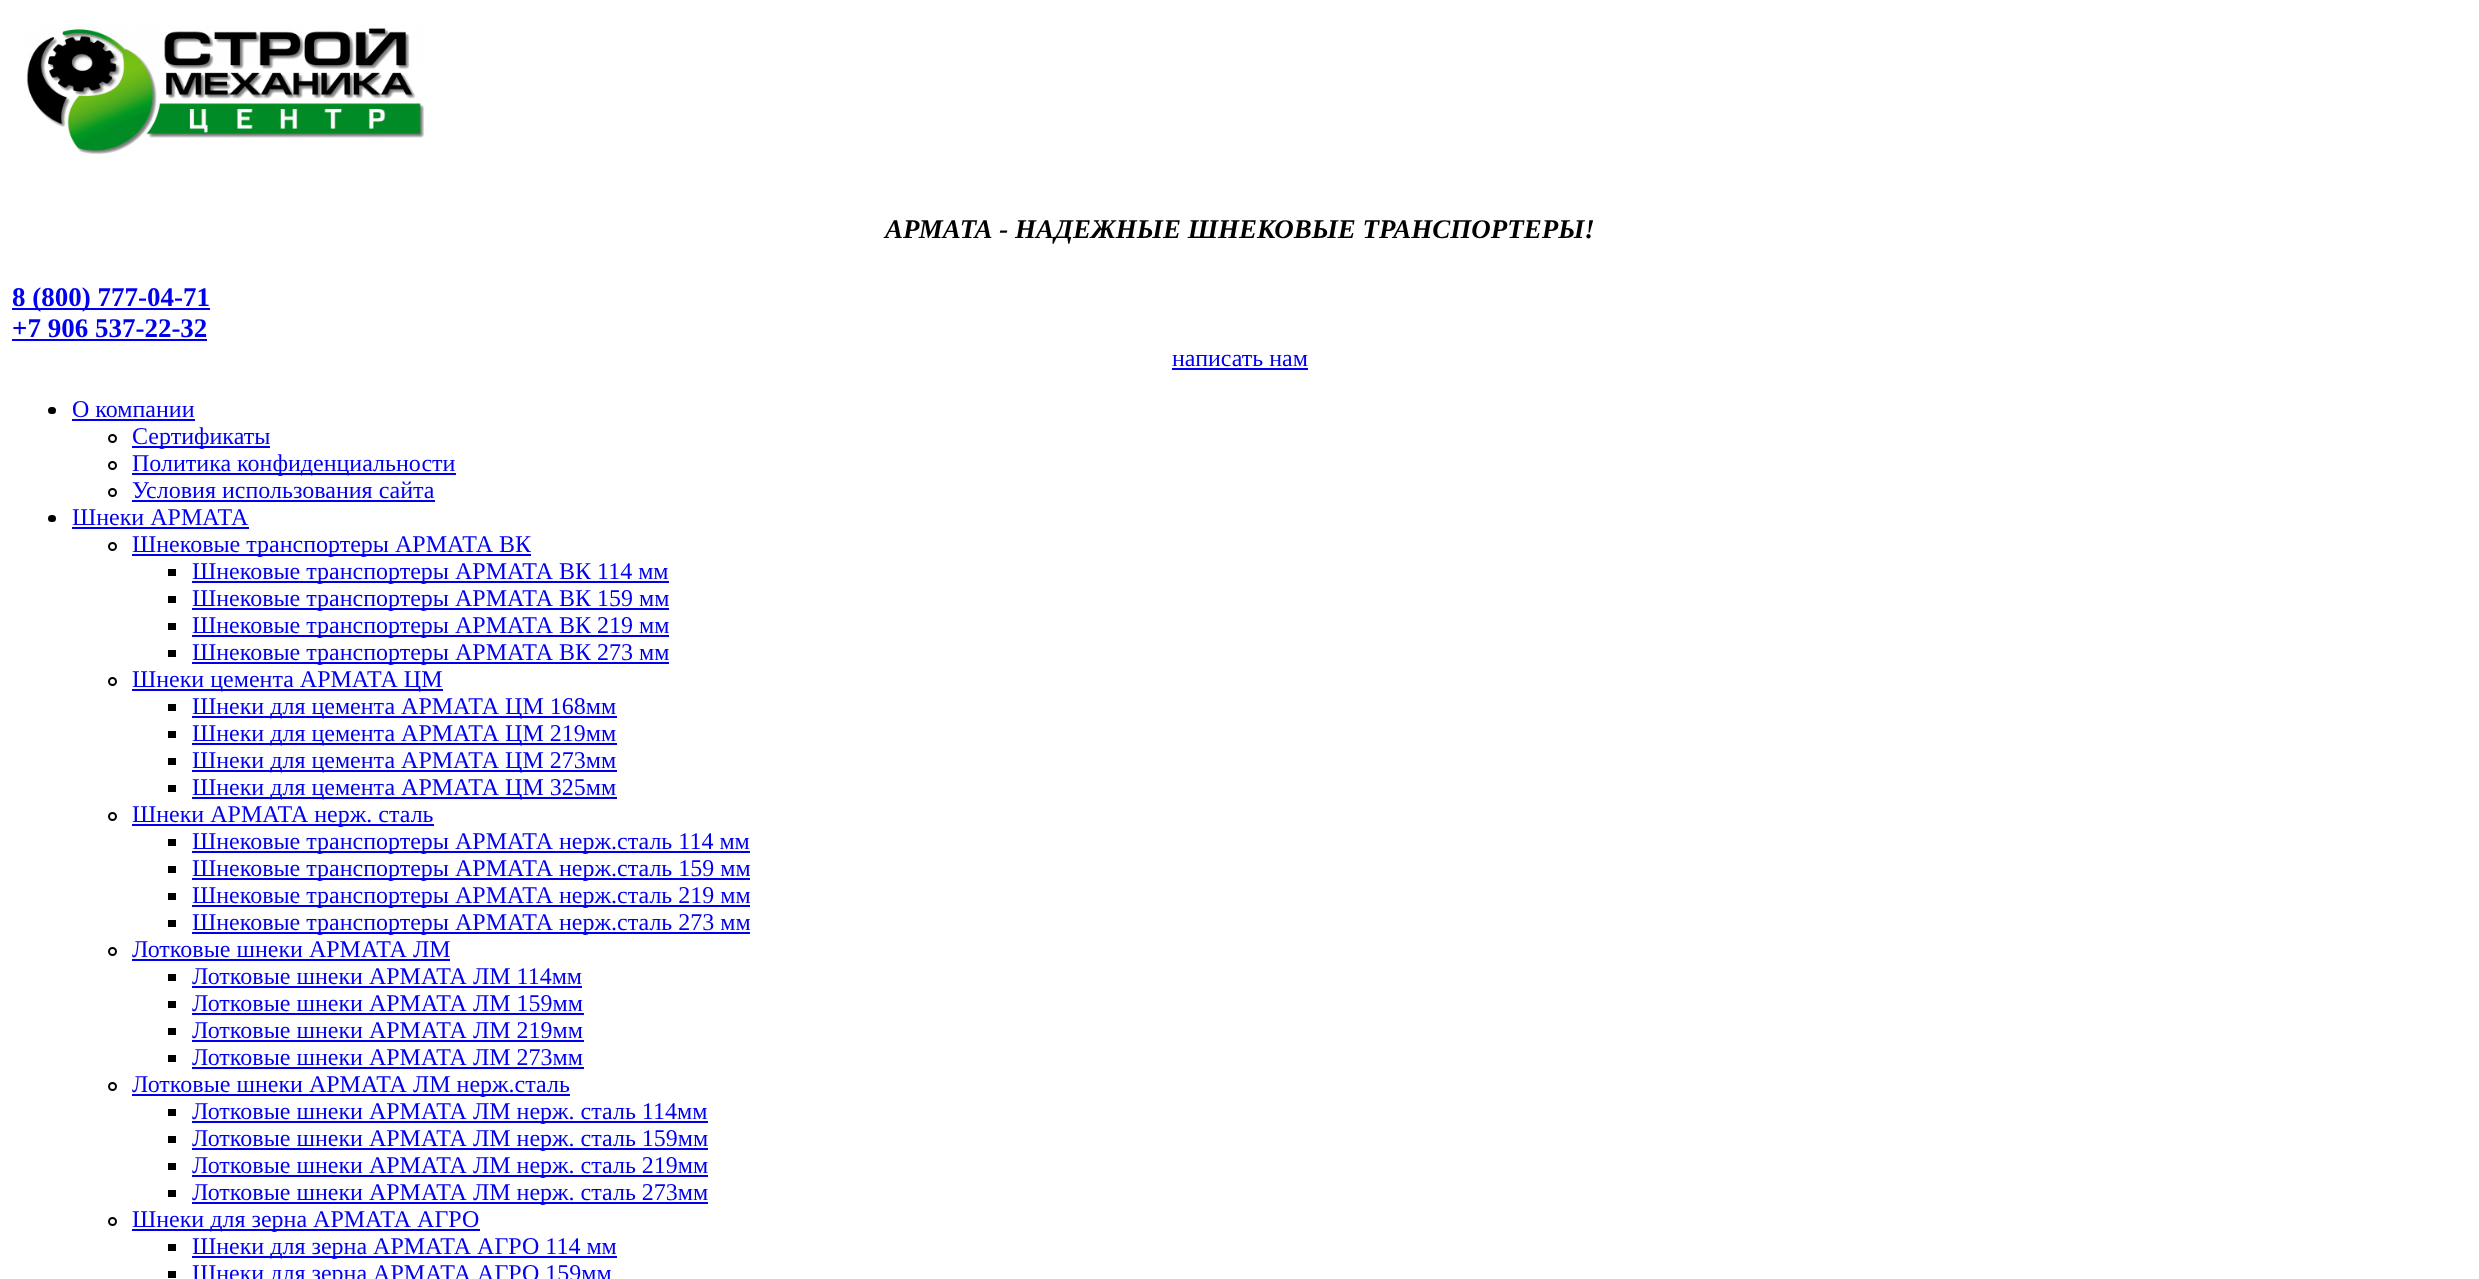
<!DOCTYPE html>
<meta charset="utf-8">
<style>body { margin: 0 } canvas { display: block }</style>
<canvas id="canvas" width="2479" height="1279"></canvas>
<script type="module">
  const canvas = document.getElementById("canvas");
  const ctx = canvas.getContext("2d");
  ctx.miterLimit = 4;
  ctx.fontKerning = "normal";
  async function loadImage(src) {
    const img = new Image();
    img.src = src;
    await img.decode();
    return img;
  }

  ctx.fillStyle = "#ffffff";
  ctx.fillRect(0, 0, 2479, 1279);
  ctx.drawImage(await loadImage("img1.png"), 26, 25, 400, 129);
  ctx.font = "italic bold 27px Liberation Serif";
  ctx.fillStyle = "#000000";
  ctx.fillText("АРМАТА - НАДЕЖНЫЕ ШНЕКОВЫЕ ТРАНСПОРТЕРЫ!", 885, 238);
  ctx.fillStyle = "#0000ee";
  ctx.fillRect(12, 308, 198, 2);
  ctx.font = "bold 27px Liberation Serif";
  ctx.fillText("8 (800) 777-04-71", 12, 306);
  ctx.fillText("+7 906 537-22-32", 12, 337);
  ctx.fillRect(12, 339, 195, 2);
  ctx.font = "24px Liberation Serif";
  ctx.fillText("написать нам", 1172, 366);
  ctx.fillRect(1172, 368, 136, 2);
  ctx.fillStyle = "#000000";
  ctx.beginPath();
  ctx.roundRect(48, 407, 8, 7, 3.5);
  ctx.fill();
  ctx.fillStyle = "#0000ee";
  ctx.fillText("О компании", 72, 417);
  ctx.fillRect(72, 419, 123, 2);
  ctx.beginPath();
  ctx.arc(112.5, 438.5, 3.5, 0, Math.PI * 2);
  ctx.strokeStyle = "#000000";
  ctx.lineWidth = 2;
  ctx.stroke();
  ctx.fillRect(132, 446, 138, 2);
  ctx.fillText("Сертификаты", 132, 444);
  ctx.beginPath();
  ctx.arc(112.5, 465.5, 3.5, 0, Math.PI * 2);
  ctx.stroke();
  ctx.fillRect(132, 473, 324, 2);
  ctx.fillText("Политика конфиденциальности", 132, 471);
  ctx.beginPath();
  ctx.arc(112.5, 492.5, 3.5, 0, Math.PI * 2);
  ctx.stroke();
  ctx.fillText("Условия использования сайта", 132, 498);
  ctx.fillRect(132, 500, 303, 2);
  ctx.fillStyle = "#000000";
  ctx.beginPath();
  ctx.roundRect(48, 515, 8, 7, 3.5);
  ctx.fill();
  ctx.fillStyle = "#0000ee";
  ctx.fillText("Шнеки АРМАТА", 72, 525);
  ctx.fillRect(72, 527, 177, 2);
  ctx.beginPath();
  ctx.arc(112.5, 546.5, 3.5, 0, Math.PI * 2);
  ctx.stroke();
  ctx.fillRect(132, 554, 399, 2);
  ctx.fillText("Шнековые транспортеры АРМАТА ВК", 132, 552);
  ctx.fillStyle = "#000000";
  ctx.fillRect(168, 569, 8, 7);
  ctx.fillStyle = "#0000ee";
  ctx.fillRect(192, 581, 477, 2);
  ctx.fillText("Шнековые транспортеры АРМАТА ВК 114 мм", 192, 579);
  ctx.fillStyle = "#000000";
  ctx.fillRect(168, 596, 8, 7);
  ctx.fillStyle = "#0000ee";
  ctx.fillRect(192, 608, 477, 2);
  ctx.fillText("Шнековые транспортеры АРМАТА ВК 159 мм", 192, 606);
  ctx.fillStyle = "#000000";
  ctx.fillRect(168, 623, 8, 7);
  ctx.fillStyle = "#0000ee";
  ctx.fillRect(192, 635, 477, 2);
  ctx.fillText("Шнековые транспортеры АРМАТА ВК 219 мм", 192, 633);
  ctx.fillStyle = "#000000";
  ctx.fillRect(168, 650, 8, 7);
  ctx.fillStyle = "#0000ee";
  ctx.fillRect(192, 662, 477, 2);
  ctx.fillText("Шнековые транспортеры АРМАТА ВК 273 мм", 192, 660);
  ctx.beginPath();
  ctx.arc(112.5, 681.5, 3.5, 0, Math.PI * 2);
  ctx.stroke();
  ctx.fillRect(132, 689, 311, 2);
  ctx.fillText("Шнеки цемента АРМАТА ЦМ", 132, 687);
  ctx.fillStyle = "#000000";
  ctx.fillRect(168, 704, 8, 7);
  ctx.fillStyle = "#0000ee";
  ctx.fillRect(192, 716, 425, 2);
  ctx.fillText("Шнеки для цемента АРМАТА ЦМ 168мм", 192, 714);
  ctx.fillStyle = "#000000";
  ctx.fillRect(168, 731, 8, 7);
  ctx.fillStyle = "#0000ee";
  ctx.fillRect(192, 743, 425, 2);
  ctx.fillText("Шнеки для цемента АРМАТА ЦМ 219мм", 192, 741);
  ctx.fillStyle = "#000000";
  ctx.fillRect(168, 758, 8, 7);
  ctx.fillStyle = "#0000ee";
  ctx.fillRect(192, 770, 425, 2);
  ctx.fillText("Шнеки для цемента АРМАТА ЦМ 273мм", 192, 768);
  ctx.fillStyle = "#000000";
  ctx.fillRect(168, 785, 8, 7);
  ctx.fillStyle = "#0000ee";
  ctx.fillRect(192, 797, 425, 2);
  ctx.fillText("Шнеки для цемента АРМАТА ЦМ 325мм", 192, 795);
  ctx.beginPath();
  ctx.arc(112.5, 816.5, 3.5, 0, Math.PI * 2);
  ctx.stroke();
  ctx.fillRect(132, 824, 302, 2);
  ctx.fillText("Шнеки АРМАТА нерж. сталь", 132, 822);
  ctx.fillStyle = "#000000";
  ctx.fillRect(168, 839, 8, 7);
  ctx.fillStyle = "#0000ee";
  ctx.fillRect(192, 851, 558, 2);
  ctx.fillText("Шнековые транспортеры АРМАТА нерж.сталь 114 мм", 192, 849);
  ctx.fillStyle = "#000000";
  ctx.fillRect(168, 866, 8, 7);
  ctx.fillStyle = "#0000ee";
  ctx.fillRect(192, 878, 558, 2);
  ctx.fillText("Шнековые транспортеры АРМАТА нерж.сталь 159 мм", 192, 876);
  ctx.fillStyle = "#000000";
  ctx.fillRect(168, 893, 8, 7);
  ctx.fillStyle = "#0000ee";
  ctx.fillRect(192, 905, 558, 2);
  ctx.fillText("Шнековые транспортеры АРМАТА нерж.сталь 219 мм", 192, 903);
  ctx.fillStyle = "#000000";
  ctx.fillRect(168, 920, 8, 7);
  ctx.fillStyle = "#0000ee";
  ctx.fillRect(192, 932, 558, 2);
  ctx.fillText("Шнековые транспортеры АРМАТА нерж.сталь 273 мм", 192, 930);
  ctx.beginPath();
  ctx.arc(112.5, 951.5, 3.5, 0, Math.PI * 2);
  ctx.stroke();
  ctx.fillText("Лотковые шнеки АРМАТА ЛМ", 132, 957);
  ctx.fillRect(132, 959, 318, 2);
  ctx.fillStyle = "#000000";
  ctx.fillRect(168, 974, 8, 7);
  ctx.fillStyle = "#0000ee";
  ctx.fillText("Лотковые шнеки АРМАТА ЛМ 114мм", 192, 984);
  ctx.fillRect(192, 986, 390, 2);
  ctx.fillStyle = "#000000";
  ctx.fillRect(168, 1001, 8, 7);
  ctx.fillStyle = "#0000ee";
  ctx.fillText("Лотковые шнеки АРМАТА ЛМ 159мм", 192, 1011);
  ctx.fillRect(192, 1013, 392, 2);
  ctx.fillStyle = "#000000";
  ctx.fillRect(168, 1028, 8, 7);
  ctx.fillStyle = "#0000ee";
  ctx.fillText("Лотковые шнеки АРМАТА ЛМ 219мм", 192, 1038);
  ctx.fillRect(192, 1040, 392, 2);
  ctx.fillStyle = "#000000";
  ctx.fillRect(168, 1055, 8, 7);
  ctx.fillStyle = "#0000ee";
  ctx.fillText("Лотковые шнеки АРМАТА ЛМ 273мм", 192, 1065);
  ctx.fillRect(192, 1067, 392, 2);
  ctx.beginPath();
  ctx.arc(112.5, 1086.5, 3.5, 0, Math.PI * 2);
  ctx.stroke();
  ctx.fillRect(132, 1094, 438, 2);
  ctx.fillText("Лотковые шнеки АРМАТА ЛМ нерж.сталь", 132, 1092);
  ctx.fillStyle = "#000000";
  ctx.fillRect(168, 1109, 8, 7);
  ctx.fillStyle = "#0000ee";
  ctx.fillRect(192, 1121, 516, 2);
  ctx.fillText("Лотковые шнеки АРМАТА ЛМ нерж. сталь 114мм", 192, 1119);
  ctx.fillStyle = "#000000";
  ctx.fillRect(168, 1136, 8, 7);
  ctx.fillStyle = "#0000ee";
  ctx.fillRect(192, 1148, 516, 2);
  ctx.fillText("Лотковые шнеки АРМАТА ЛМ нерж. сталь 159мм", 192, 1146);
  ctx.fillStyle = "#000000";
  ctx.fillRect(168, 1163, 8, 7);
  ctx.fillStyle = "#0000ee";
  ctx.fillRect(192, 1175, 516, 2);
  ctx.fillText("Лотковые шнеки АРМАТА ЛМ нерж. сталь 219мм", 192, 1173);
  ctx.fillStyle = "#000000";
  ctx.fillRect(168, 1190, 8, 7);
  ctx.fillStyle = "#0000ee";
  ctx.fillRect(192, 1202, 516, 2);
  ctx.fillText("Лотковые шнеки АРМАТА ЛМ нерж. сталь 273мм", 192, 1200);
  ctx.beginPath();
  ctx.arc(112.5, 1221.5, 3.5, 0, Math.PI * 2);
  ctx.stroke();
  ctx.fillRect(132, 1229, 348, 2);
  ctx.fillText("Шнеки для зерна АРМАТА АГРО", 132, 1227);
  ctx.fillStyle = "#000000";
  ctx.fillRect(168, 1244, 8, 7);
  ctx.fillStyle = "#0000ee";
  ctx.fillRect(192, 1256, 425, 2);
  ctx.fillText("Шнеки для зерна АРМАТА АГРО 114 мм", 192, 1254);
  ctx.fillStyle = "#000000";
  ctx.fillRect(168, 1271, 8, 7);
  ctx.fillStyle = "#0000ee";
  ctx.fillText("Шнеки для зерна АРМАТА АГРО 159мм", 192, 1281);
</script>
